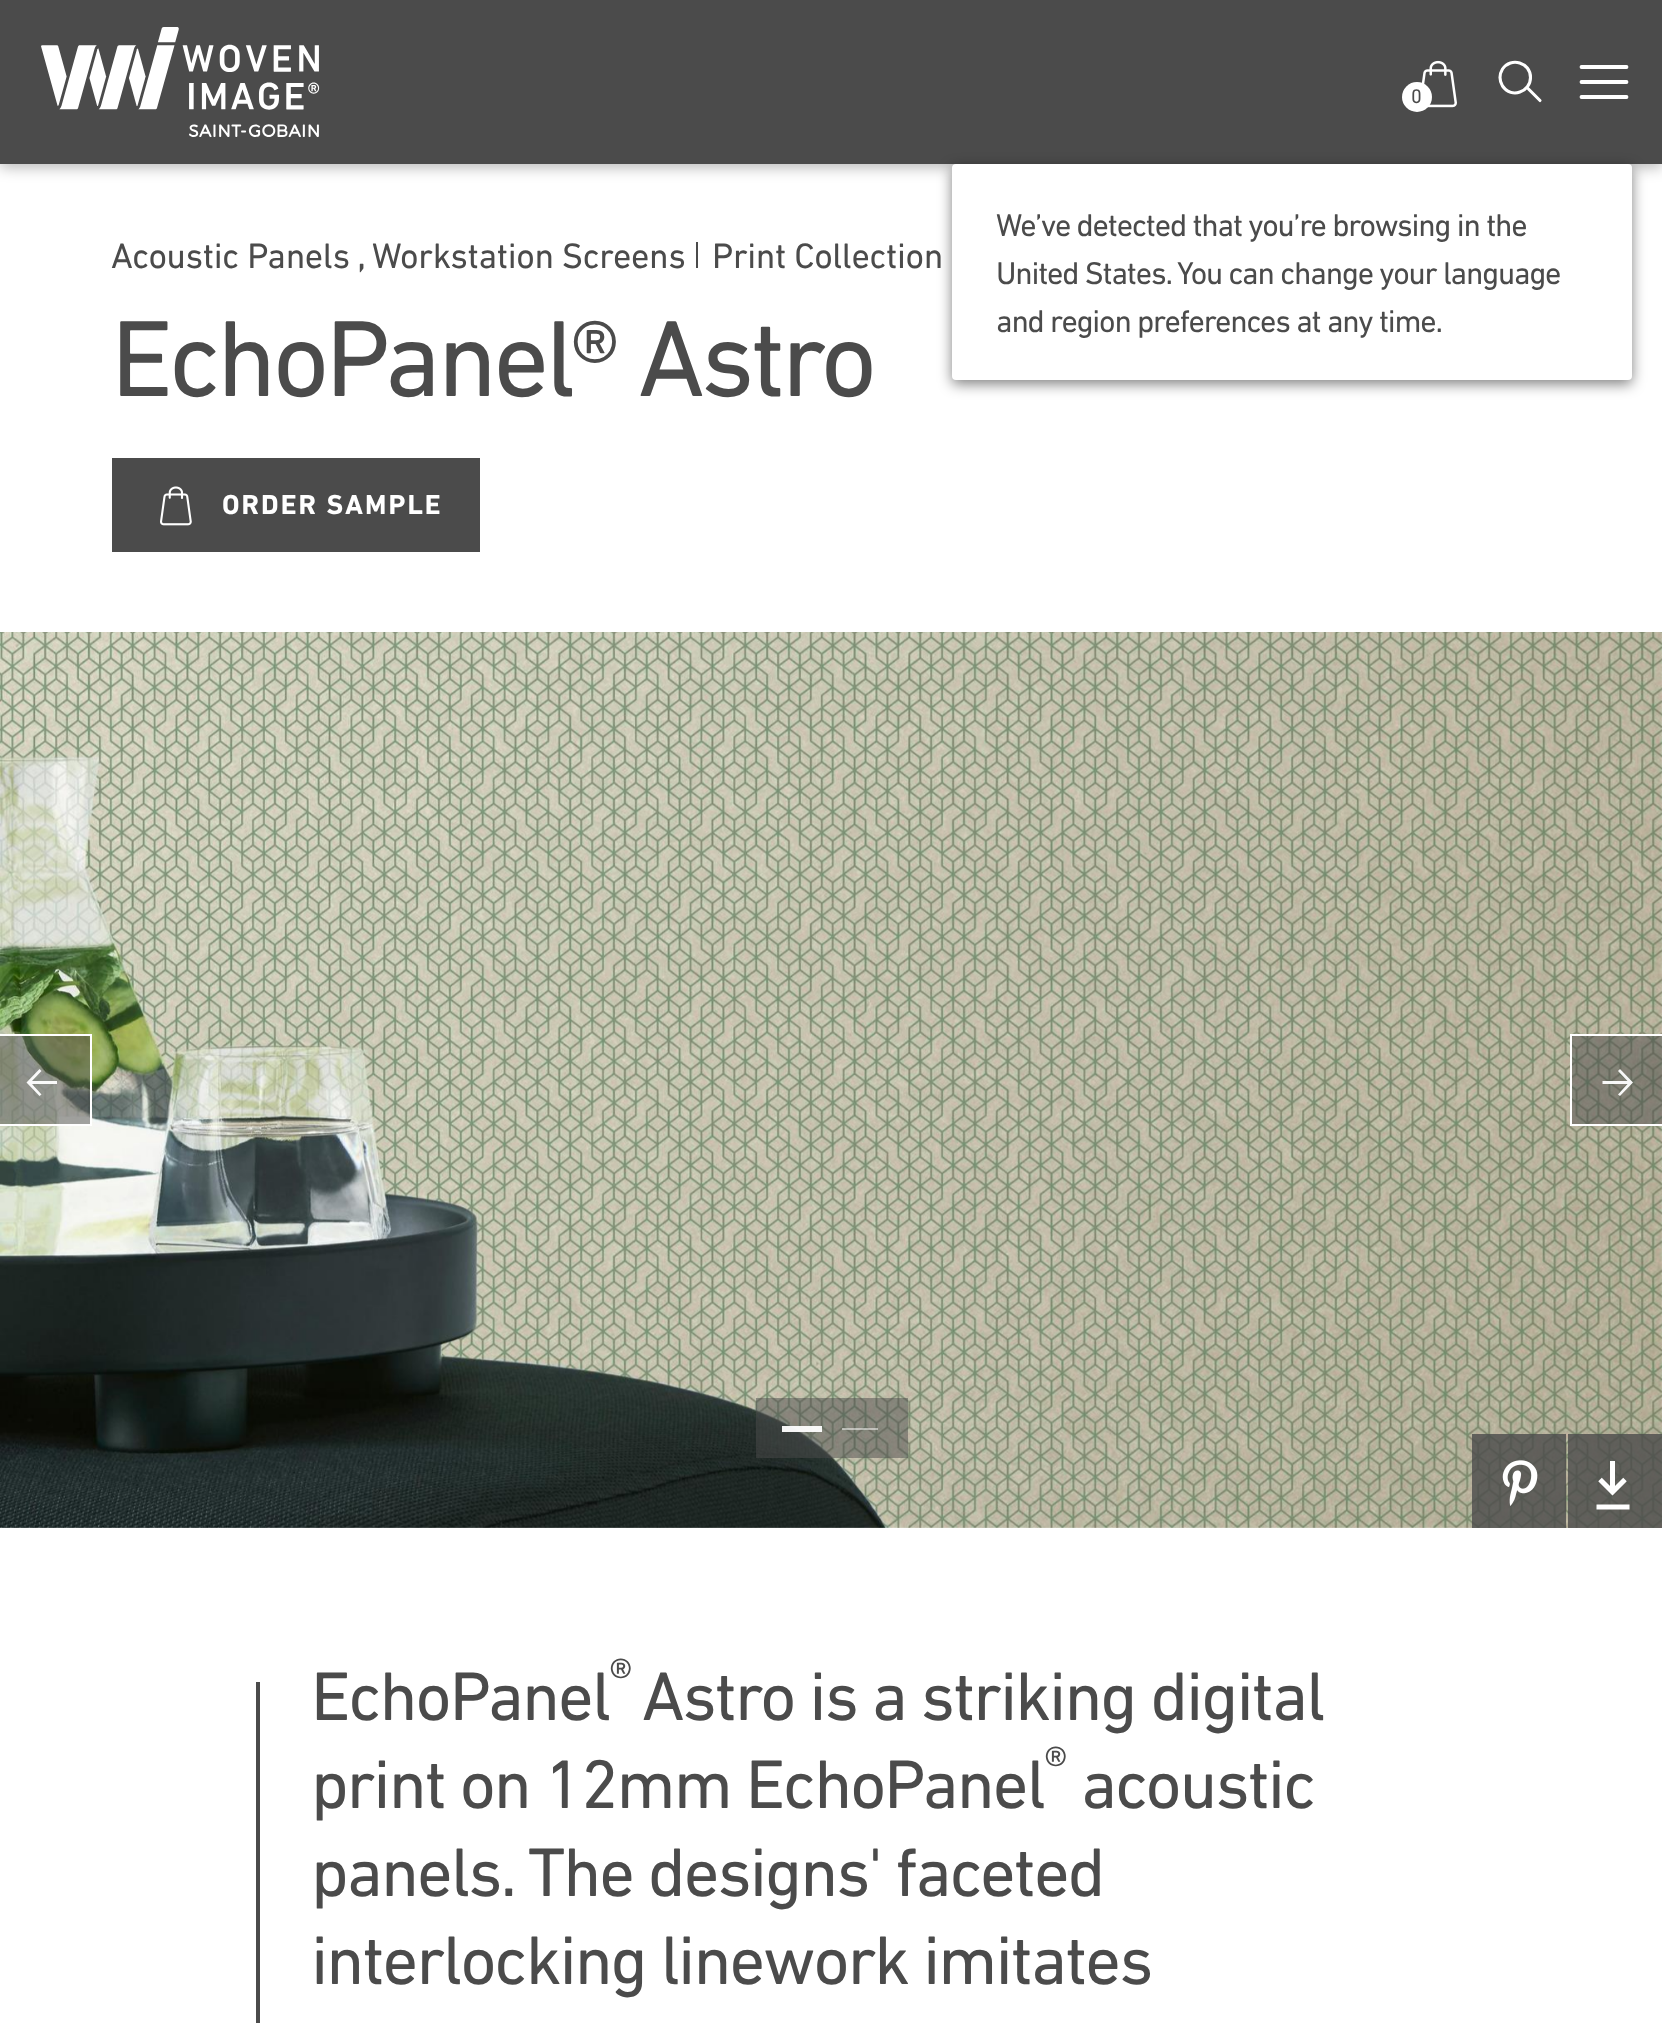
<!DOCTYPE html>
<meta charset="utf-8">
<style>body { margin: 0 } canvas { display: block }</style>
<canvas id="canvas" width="1662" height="2023"></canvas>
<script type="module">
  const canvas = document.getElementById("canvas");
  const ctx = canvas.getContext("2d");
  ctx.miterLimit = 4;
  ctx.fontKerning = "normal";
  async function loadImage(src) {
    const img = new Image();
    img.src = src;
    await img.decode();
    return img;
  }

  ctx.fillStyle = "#ffffff";
  ctx.fillRect(0, 0, 1662, 2023);
  ctx.fillStyle = "rgba(0, 0, 0, 0.26)";
  ctx.filter = "blur(7px)";
  ctx.beginPath();
  ctx.rect(0, 4, 1662, 164);
  ctx.fill();
  ctx.filter = "none";
  ctx.fillStyle = "#4b4b4b";
  ctx.fillRect(0, 0, 1662, 164);
  ctx.drawImage(await loadImage("img1.png"), 41, 27, 279, 110);
  ctx.drawImage(await loadImage("img2.png"), 1421, 60, 36, 48);
  ctx.fillStyle = "#ffffff";
  ctx.beginPath();
  ctx.arc(1417, 97, 15, 0, Math.PI * 2);
  ctx.fill();
  ctx.font = "20px DIN";
  ctx.fillStyle = "#4b4b4b";
  ctx.fillText("0", 1411, 103);
  ctx.beginPath();
  ctx.moveTo(1530.5, 77.5);
  ctx.bezierCurveTo(1530.5, 92, 1511.5, 99, 1502.5, 86);
  ctx.bezierCurveTo(1501, 83.5, 1500, 80.5, 1500, 77.5);
  ctx.bezierCurveTo(1500, 74.5, 1501, 71.5, 1502.5, 69);
  ctx.bezierCurveTo(1511, 56.5, 1530.5, 62.5, 1530.5, 77.5);
  ctx.closePath();
  ctx.moveTo(1540, 100.5);
  ctx.lineTo(1528.5, 89);
  ctx.strokeStyle = "#ffffff";
  ctx.lineWidth = 3.1;
  ctx.lineCap = "round";
  ctx.lineJoin = "round";
  ctx.stroke();
  ctx.beginPath();
  ctx.moveTo(1581.5, 67);
  ctx.lineTo(1626.5, 67);
  ctx.moveTo(1581.5, 82);
  ctx.lineTo(1626.5, 82);
  ctx.moveTo(1581.5, 97);
  ctx.lineTo(1626.5, 97);
  ctx.lineWidth = 3.8;
  ctx.lineJoin = "miter";
  ctx.stroke();
  ctx.fillStyle = "rgba(0, 0, 0, 0.5)";
  ctx.filter = "blur(7px)";
  ctx.beginPath();
  ctx.roundRect(952, 168, 680, 216, 4);
  ctx.fill();
  ctx.filter = "none";
  ctx.fillStyle = "#ffffff";
  ctx.beginPath();
  ctx.roundRect(952, 164, 680, 216, 4);
  ctx.fill();
  ctx.letterSpacing = "-1.2px";
  ctx.font = "32px DIN";
  ctx.fillStyle = "#4b4b4b";
  ctx.fillText("We’ve detected that you’re browsing in the", 996, 236);
  ctx.fillText("United States. You can change your language", 996, 284);
  ctx.fillText("and region preferences at any time.", 996, 332);
  ctx.letterSpacing = "-0.4px";
  ctx.font = "36px DIN";
  ctx.fillText("Acoustic Panels", 111, 268);
  ctx.letterSpacing = "-1.2px";
  ctx.font = "40px DIN";
  ctx.fillText(",", 357, 268);
  ctx.letterSpacing = "-0.4px";
  ctx.font = "36px DIN";
  ctx.fillText("Workstation Screens", 372, 268);
  ctx.fillRect(696, 242, 2, 26);
  ctx.fillText("Print Collection", 712, 268);
  ctx.letterSpacing = "-4px";
  ctx.font = "110px DIN";
  ctx.fillText("EchoPanel® Astro", 111, 396);
  ctx.fillRect(112, 458, 368, 94);
  ctx.drawImage(await loadImage("img3.png"), 160, 486, 32, 40);
  ctx.letterSpacing = "2px";
  ctx.font = "bold 28px DIN";
  ctx.fillStyle = "#ffffff";
  ctx.fillText("ORDER SAMPLE", 222, 514);
  ctx.drawImage(await loadImage("img4.png"), 0, 632, 1662, 896);
  ctx.fillStyle = "rgba(75, 75, 75, 0.8)";
  ctx.fillRect(1472, 1434, 94, 94);
  ctx.drawImage(await loadImage("img5.png"), 1502, 1460, 36, 46);
  ctx.fillRect(1568, 1434, 94, 94);
  ctx.fillStyle = "#ffffff";
  ctx.fillRect(1610, 1461, 5, 29);
  ctx.beginPath();
  ctx.moveTo(1625, 1479.5);
  ctx.lineTo(1612.5, 1492);
  ctx.lineTo(1600, 1479.5);
  ctx.lineWidth = 5;
  ctx.lineCap = "butt";
  ctx.stroke();
  ctx.beginPath();
  ctx.moveTo(1599, 1507);
  ctx.lineTo(1627, 1507);
  ctx.lineCap = "square";
  ctx.stroke();
  ctx.fillStyle = "rgba(75, 75, 75, 0.5)";
  ctx.fillRect(0, 1036, 90, 88);
  ctx.fillStyle = "#ffffff";
  ctx.fillRect(0, 1034, 92, 2);
  ctx.fillRect(90, 1034, 2, 92);
  ctx.fillRect(0, 1124, 92, 2);
  ctx.fillStyle = "rgba(255, 255, 255, 0.95)";
  ctx.beginPath();
  ctx.moveTo(39.5, 1096);
  ctx.lineTo(41.5, 1094.5);
  ctx.lineTo(32, 1084);
  ctx.lineTo(57, 1084);
  ctx.lineTo(57, 1081);
  ctx.lineTo(32, 1081);
  ctx.lineTo(41.5, 1071);
  ctx.lineTo(39.5, 1069);
  ctx.lineTo(26.5, 1082.5);
  ctx.closePath();
  ctx.fill();
  ctx.fillStyle = "rgba(75, 75, 75, 0.5)";
  ctx.fillRect(1572, 1036, 90, 88);
  ctx.fillStyle = "#ffffff";
  ctx.fillRect(1570, 1034, 92, 2);
  ctx.fillRect(1570, 1124, 92, 2);
  ctx.fillRect(1570, 1034, 2, 92);
  ctx.fillStyle = "rgba(255, 255, 255, 0.95)";
  ctx.beginPath();
  ctx.moveTo(1620, 1069);
  ctx.lineTo(1618, 1071);
  ctx.lineTo(1627.5, 1081);
  ctx.lineTo(1602.5, 1081);
  ctx.lineTo(1602.5, 1084);
  ctx.lineTo(1627.5, 1084);
  ctx.lineTo(1618, 1094.5);
  ctx.lineTo(1620, 1096);
  ctx.lineTo(1633, 1082.5);
  ctx.closePath();
  ctx.fill();
  ctx.fillStyle = "rgba(75, 75, 75, 0.5)";
  ctx.fillRect(756, 1398, 152, 60);
  ctx.fillStyle = "rgba(255, 255, 255, 0.95)";
  ctx.fillRect(782, 1426, 40, 6);
  ctx.fillStyle = "rgba(255, 255, 255, 0.5)";
  ctx.fillRect(842, 1428, 36, 2);
  ctx.letterSpacing = "-2px";
  ctx.font = "52px DIN";
  ctx.fillStyle = "#4b4b4b";
  ctx.fillText("®", 609, 1694);
  ctx.fillRect(256, 1682, 4, 341);
  ctx.font = "70px DIN";
  ctx.fillText("EchoPanel", 311, 1720);
  ctx.fillText("Astro is a striking digital", 642, 1720);
  ctx.font = "52px DIN";
  ctx.fillText("®", 1044, 1782);
  ctx.font = "70px DIN";
  ctx.fillText("print on 12mm EchoPanel", 311, 1808);
  ctx.fillText("acoustic", 1081, 1808);
  ctx.fillText("panels. The designs' faceted", 311, 1896);
  ctx.fillText("interlocking linework imitates", 311, 1984);
</script>
